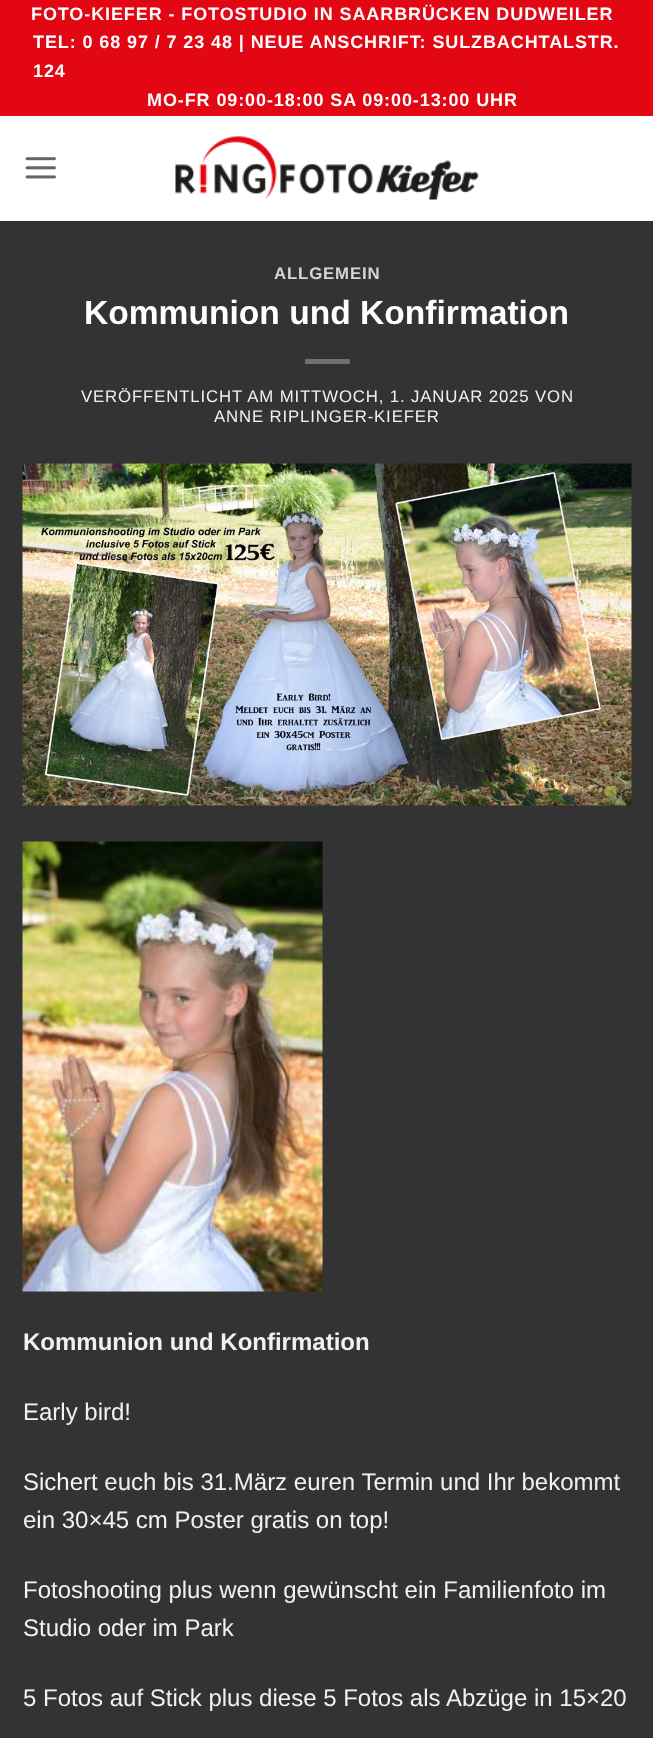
<!DOCTYPE html>
<meta charset="utf-8">
<style>body { margin: 0 } canvas { display: block }</style>
<canvas id="canvas" width="653" height="1738"></canvas>
<script type="module">
  const canvas = document.getElementById("canvas");
  const ctx = canvas.getContext("2d");
  ctx.miterLimit = 4;
  ctx.fontKerning = "normal";
  async function loadImage(src) {
    const img = new Image();
    img.src = src;
    await img.decode();
    return img;
  }

  ctx.fillStyle = "#ffffff";
  ctx.fillRect(0, 0, 653, 1738);
  ctx.fillStyle = "#e30613";
  ctx.fillRect(0, 0, 653, 116);
  ctx.letterSpacing = "0.9px";
  ctx.font = "bold 18px Liberation Sans";
  ctx.fillStyle = "#ffffff";
  ctx.fillText("FOTO-KIEFER - FOTOSTUDIO IN SAARBRÜCKEN DUDWEILER", 31, 20);
  ctx.fillText("TEL: 0 68 97 / 7 23 48 | NEUE ANSCHRIFT: SULZBACHTALSTR.", 33, 48);
  ctx.fillText("124", 33, 77);
  ctx.fillText("MO-FR 09:00-18:00 SA 09:00-13:00 UHR", 147, 106);
  ctx.drawImage(await loadImage("img1.png"), 25, 157, 31, 22);
  ctx.drawImage(await loadImage("img2.png"), 175, 136, 304, 64);
  ctx.fillStyle = "#333333";
  ctx.fillRect(0, 221, 653, 1517);
  ctx.letterSpacing = "0.85px";
  ctx.font = "bold 16.8px Liberation Sans";
  ctx.fillStyle = "#d6d6d6";
  ctx.fillText("ALLGEMEIN", 274, 279);
  ctx.letterSpacing = "0px";
  ctx.font = "bold 33.6px Liberation Sans";
  ctx.fillStyle = "#ffffff";
  ctx.fillText("Kommunion und Konfirmation", 84, 324);
  ctx.fillStyle = "#707070";
  ctx.fillRect(305, 359, 45, 5);
  ctx.letterSpacing = "0.85px";
  ctx.font = "16.8px Liberation Sans";
  ctx.fillStyle = "#f1f1f1";
  ctx.fillText("VERÖFFENTLICHT AM MITTWOCH, 1. JANUAR 2025 VON", 81, 402);
  ctx.fillText("ANNE RIPLINGER-KIEFER", 214, 422);
  ctx.drawImage(await loadImage("img3.png"), 22, 463, 610, 343);
  ctx.drawImage(await loadImage("img4.png"), 22, 841, 301, 451);
  ctx.letterSpacing = "0px";
  ctx.font = "bold 24px Liberation Sans";
  ctx.fillText("Kommunion und Konfirmation", 23, 1350);
  ctx.font = "24px Liberation Sans";
  ctx.fillText("Early bird!", 23, 1420);
  ctx.fillText("Sichert euch bis 31.März euren Termin und Ihr bekommt", 23, 1490);
  ctx.fillText("ein 30×45 cm Poster gratis on top!", 23, 1528);
  ctx.fillText("Fotoshooting plus wenn gewünscht ein Familienfoto im", 23, 1598);
  ctx.fillText("Studio oder im Park", 23, 1636);
  ctx.fillText("5 Fotos auf Stick plus diese 5 Fotos als Abzüge in 15×20", 23, 1706);
</script>
